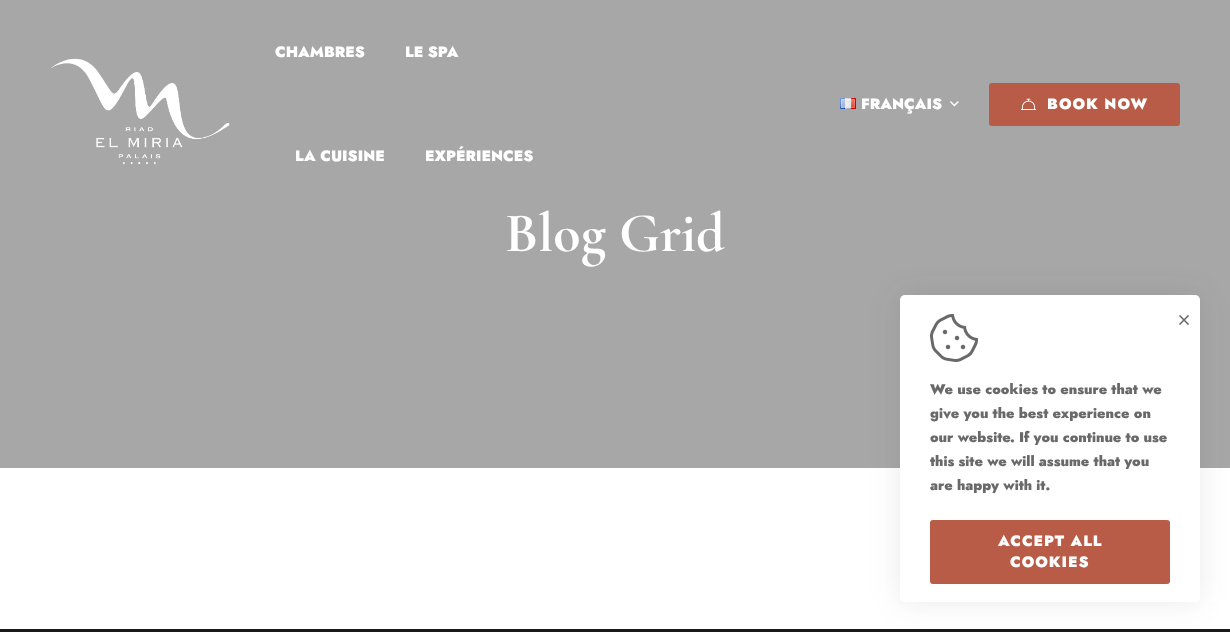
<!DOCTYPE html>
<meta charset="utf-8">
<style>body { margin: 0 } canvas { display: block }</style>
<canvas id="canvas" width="1230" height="632"></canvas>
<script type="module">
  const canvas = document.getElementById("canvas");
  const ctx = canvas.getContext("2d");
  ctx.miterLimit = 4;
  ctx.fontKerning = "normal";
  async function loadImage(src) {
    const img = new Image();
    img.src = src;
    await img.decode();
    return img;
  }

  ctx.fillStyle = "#ffffff";
  ctx.fillRect(0, 0, 1230, 632);
  ctx.fillStyle = "#a7a7a7";
  ctx.fillRect(0, 0, 1230, 468);
  ctx.drawImage(await loadImage("img1.png"), 50, 58, 180, 106);
  ctx.font = "900 15px Jost";
  ctx.fillStyle = "#ffffff";
  ctx.fillText("CHAMBRES", 275, 57);
  ctx.fillText("LE SPA", 405, 57);
  ctx.fillText("LA CUISINE", 295, 161);
  ctx.fillText("EXPÉRIENCES", 425, 161);
  ctx.drawImage(await loadImage("img2.png"), 840, 98, 16, 11);
  ctx.fillText("FRANÇAIS", 861, 109);
  ctx.drawImage(await loadImage("img3.png"), 950, 101, 9, 6);
  ctx.fillStyle = "#b95c47";
  ctx.beginPath();
  ctx.roundRect(989, 83, 191, 43, 3);
  ctx.fill();
  ctx.drawImage(await loadImage("img4.png"), 1021, 98, 15, 12);
  ctx.letterSpacing = "1px";
  ctx.fillStyle = "#ffffff";
  ctx.fillText("BOOK NOW", 1047, 109);
  ctx.letterSpacing = "0px";
  ctx.font = "bold 56px Cormorant Garamond";
  ctx.fillText("Blog Grid", 505, 251);
  ctx.fillStyle = "#1a1a1a";
  ctx.fillRect(0, 629, 1230, 3);
  ctx.fillStyle = "rgba(51, 51, 51, 0.1)";
  ctx.filter = "blur(15px)";
  ctx.beginPath();
  ctx.roundRect(900, 295, 300, 307, 5);
  ctx.fill();
  ctx.filter = "none";
  ctx.fillStyle = "#ffffff";
  ctx.beginPath();
  ctx.roundRect(900, 295, 300, 307, 5);
  ctx.fill();
  ctx.drawImage(await loadImage("img5.png"), 1179, 315, 10, 10);
  ctx.drawImage(await loadImage("img6.png"), 930, 314, 48, 48);
  ctx.font = "900 14px Jost";
  ctx.fillStyle = "#696969";
  ctx.fillText("We use cookies to ensure that we", 930, 394);
  ctx.fillText("give you the best experience on", 930, 418);
  ctx.fillText("our website. If you continue to use", 930, 442);
  ctx.fillText("this site we will assume that you", 930, 466);
  ctx.fillText("are happy with it.", 930, 490);
  ctx.fillStyle = "#b95c47";
  ctx.beginPath();
  ctx.roundRect(930, 520, 240, 64, 3);
  ctx.fill();
  ctx.letterSpacing = "1px";
  ctx.font = "900 15px Jost";
  ctx.fillStyle = "#ffffff";
  ctx.fillText("ACCEPT ALL", 998, 546);
  ctx.fillText("COOKIES", 1010, 567);
</script>
